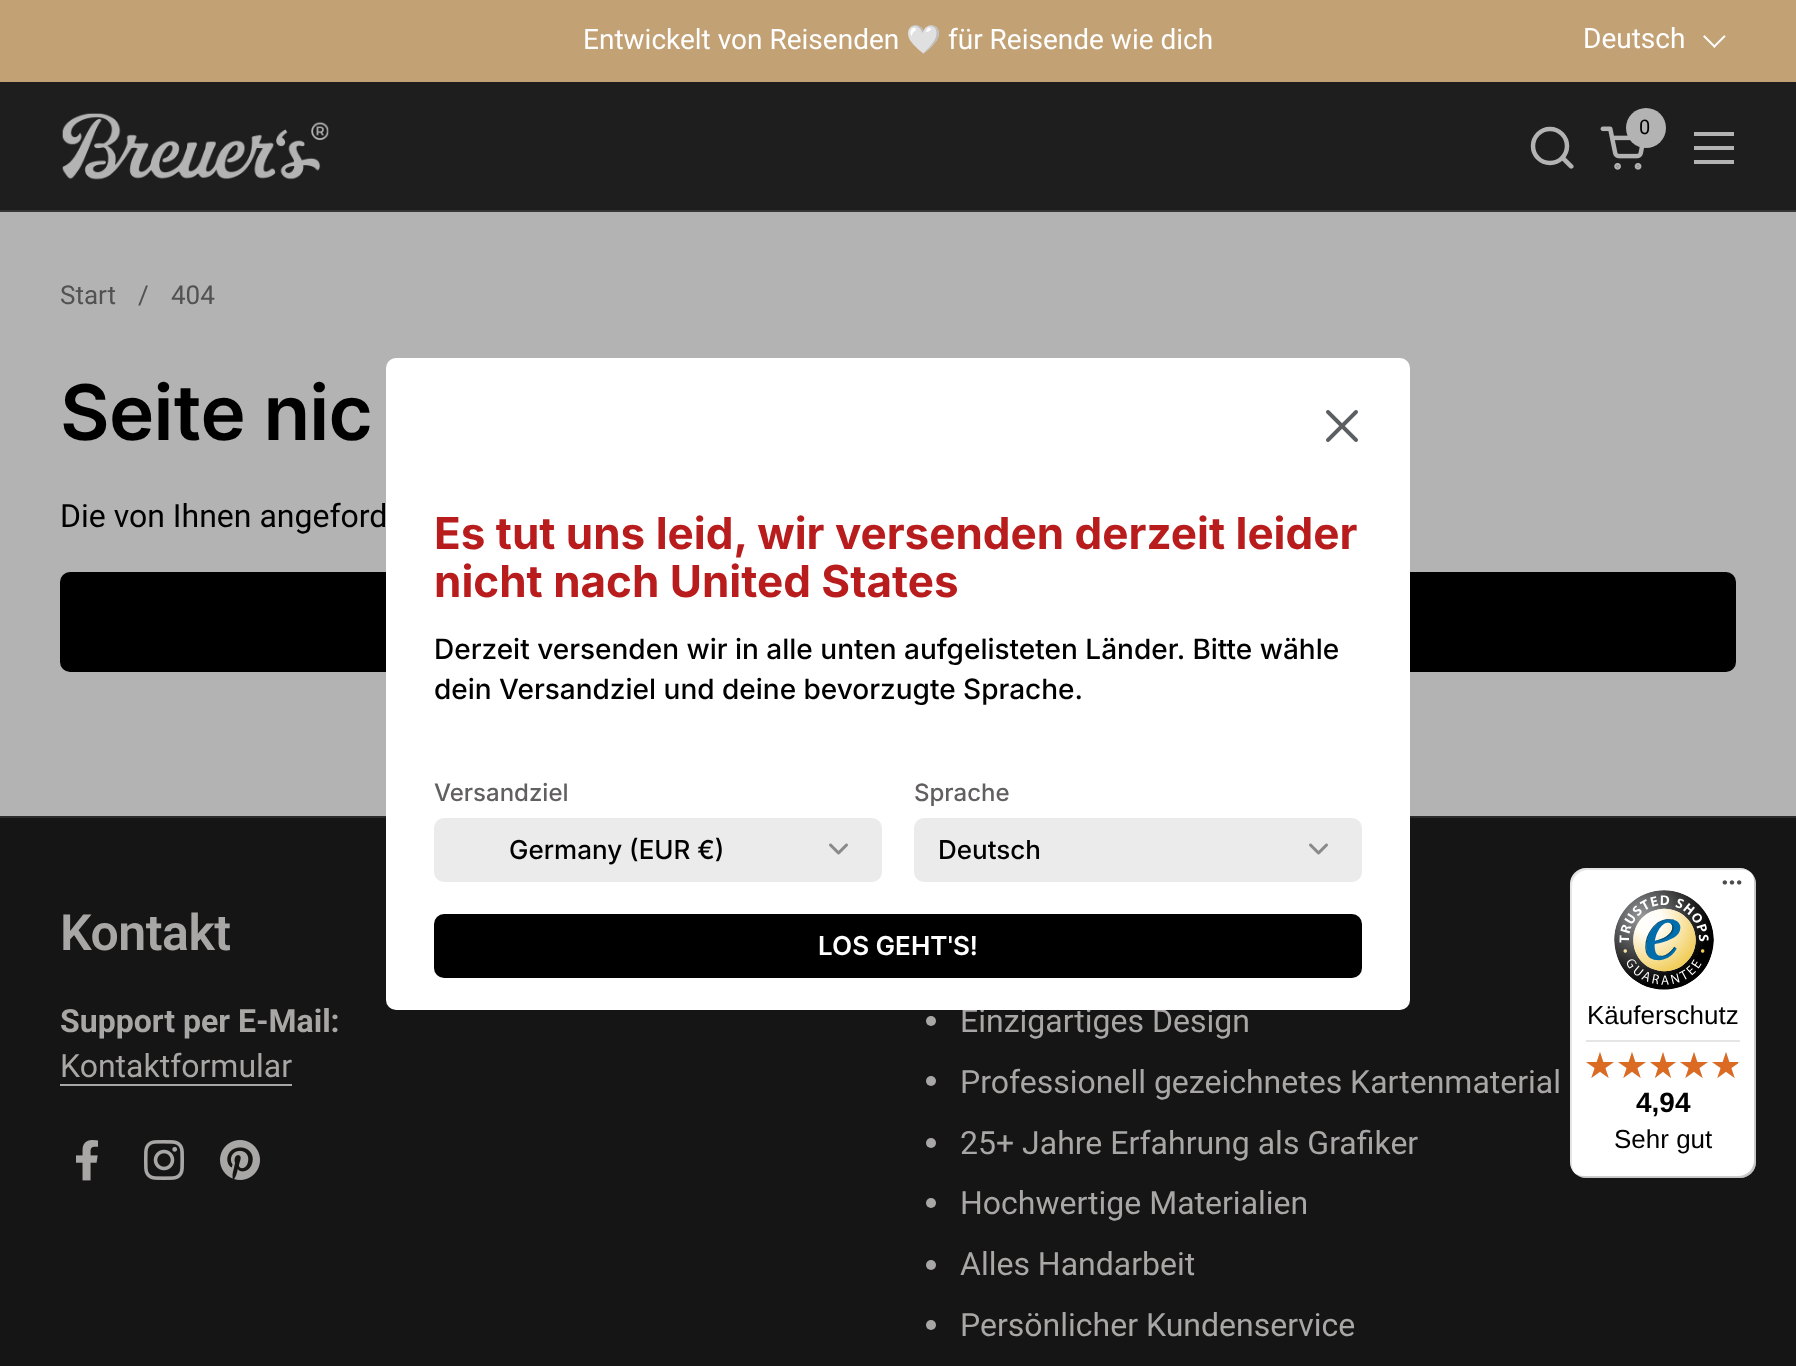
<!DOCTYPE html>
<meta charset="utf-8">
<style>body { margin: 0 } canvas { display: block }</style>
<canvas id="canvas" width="1796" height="1366"></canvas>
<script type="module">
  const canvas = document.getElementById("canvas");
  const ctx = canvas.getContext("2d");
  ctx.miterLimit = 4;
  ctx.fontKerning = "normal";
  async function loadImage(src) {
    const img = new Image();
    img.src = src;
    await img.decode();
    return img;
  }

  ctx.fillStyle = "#b3b3b3";
  ctx.fillRect(0, 0, 1796, 1366);
  ctx.fillStyle = "#c2a175";
  ctx.fillRect(0, 0, 1796, 82);
  ctx.font = "28px Roboto";
  ctx.fillStyle = "#ffffff";
  ctx.fillText("Entwickelt von Reisenden", 583, 49);
  ctx.font = "28px Noto Color Emoji";
  ctx.fillText("🤍", 906, 49);
  ctx.font = "28px Roboto";
  ctx.fillText("für Reisende wie dich", 948, 49);
  ctx.fillText("Deutsch", 1583, 48);
  ctx.drawImage(await loadImage("img1.png"), 1703, 35, 23, 13);
  ctx.fillStyle = "#1e1e1e";
  ctx.fillRect(0, 82, 1796, 128);
  ctx.drawImage(await loadImage("img2.png"), 62, 113, 267, 67);
  ctx.beginPath();
  ctx.arc(1550, 146, 17, 0, Math.PI * 2);
  ctx.strokeStyle = "#b3b3b3";
  ctx.lineWidth = 4.5;
  ctx.stroke();
  ctx.fillStyle = "#b3b3b3";
  ctx.beginPath();
  ctx.moveTo(1565, 157);
  ctx.lineTo(1563.5, 155);
  ctx.lineTo(1560, 158.5);
  ctx.lineTo(1561.5, 160);
  ctx.closePath();
  ctx.moveTo(1569.5, 168);
  ctx.bezierCurveTo(1572, 170, 1575, 167, 1573, 165);
  ctx.closePath();
  ctx.moveTo(1561.5, 160);
  ctx.lineTo(1569.5, 168);
  ctx.lineTo(1573, 165);
  ctx.lineTo(1565, 157);
  ctx.closePath();
  ctx.fill();
  ctx.beginPath();
  ctx.arc(1646, 128, 20, 0, Math.PI * 2);
  ctx.fill();
  ctx.font = "20px Roboto";
  ctx.fillStyle = "#000000";
  ctx.fillText("0", 1639, 134);
  ctx.drawImage(await loadImage("img3.png"), 1600, 126, 44, 44);
  ctx.fillStyle = "#b3b3b3";
  ctx.fillRect(1694, 132, 40, 4);
  ctx.fillRect(1694, 146, 40, 4);
  ctx.fillRect(1694, 160, 40, 4);
  ctx.fillStyle = "#353535";
  ctx.fillRect(0, 210, 1796, 2);
  ctx.font = "26px Roboto";
  ctx.fillStyle = "#525252";
  ctx.fillText("Start", 60, 304);
  ctx.fillText("/", 138, 304);
  ctx.fillText("404", 171, 304);
  ctx.letterSpacing = "-0.75px";
  ctx.font = "600 76.5px Inter";
  ctx.fillStyle = "#000000";
  ctx.fillText("Seite nic", 60, 440);
  ctx.letterSpacing = "0px";
  ctx.font = "32px Roboto";
  ctx.fillText("Die von Ihnen angeford", 60, 527);
  ctx.beginPath();
  ctx.roundRect(61, 573, 1674, 98, 9);
  ctx.fill();
  ctx.strokeStyle = "#000000";
  ctx.lineWidth = 2;
  ctx.stroke();
  ctx.fillStyle = "#151516";
  ctx.fillRect(0, 818, 1796, 548);
  ctx.fillStyle = "#2b2b2c";
  ctx.fillRect(0, 816, 1796, 2);
  ctx.fillStyle = "#a9a7a5";
  ctx.fillText("Einzigartiges Design", 960, 1032);
  ctx.fillStyle = "#ffffff";
  ctx.beginPath();
  ctx.roundRect(386, 358, 1024, 652, 10);
  ctx.fill();
  ctx.drawImage(await loadImage("img4.png"), 1326, 410, 32, 32);
  ctx.font = "bold 44px Inter";
  ctx.fillStyle = "#b81c1c";
  ctx.fillText("Es tut uns leid, wir versenden derzeit leider", 434, 549);
  ctx.fillText("nicht nach United States", 434, 597);
  ctx.font = "500 28px Inter";
  ctx.fillStyle = "#000000";
  ctx.fillText("Derzeit versenden wir in alle unten aufgelisteten Länder. Bitte wähle", 434, 659);
  ctx.fillText("dein Versandziel und deine bevorzugte Sprache.", 434, 699);
  ctx.font = "500 24px Inter";
  ctx.fillStyle = "#615f5f";
  ctx.fillText("Versandziel", 434, 801);
  ctx.fillStyle = "#ebebeb";
  ctx.beginPath();
  ctx.roundRect(434, 818, 448, 64, 10);
  ctx.fill();
  ctx.font = "500 26px Inter";
  ctx.fillStyle = "#000000";
  ctx.fillText("Germany (EUR €)", 509, 859);
  ctx.drawImage(await loadImage("img5.png"), 829, 843, 19, 12);
  ctx.font = "500 24px Inter";
  ctx.fillStyle = "#615f5f";
  ctx.fillText("Sprache", 914, 801);
  ctx.fillStyle = "#ebebeb";
  ctx.beginPath();
  ctx.roundRect(914, 818, 448, 64, 10);
  ctx.fill();
  ctx.font = "500 26px Inter";
  ctx.fillStyle = "#000000";
  ctx.fillText("Deutsch", 938, 859);
  ctx.drawImage(await loadImage("img5.png"), 1309, 843, 19, 12);
  ctx.beginPath();
  ctx.roundRect(434, 914, 928, 64, 10);
  ctx.fill();
  ctx.font = "600 26px Inter";
  ctx.fillStyle = "#ffffff";
  ctx.fillText("LOS GEHT'S!", 818, 955);
  ctx.letterSpacing = "-0.5px";
  ctx.font = "600 50px Roboto";
  ctx.fillStyle = "#a9a7a5";
  ctx.fillText("Kontakt", 60, 950);
  ctx.letterSpacing = "0px";
  ctx.font = "bold 32px Roboto";
  ctx.fillText("Support per E-Mail:", 60, 1032);
  ctx.font = "32px Roboto";
  ctx.fillText("Kontaktformular", 60, 1077);
  ctx.fillRect(60, 1084, 232, 2);
  ctx.drawImage(await loadImage("img6.png"), 76, 1140, 22, 41);
  ctx.drawImage(await loadImage("img7.png"), 144, 1140, 40, 40);
  ctx.drawImage(await loadImage("img8.png"), 220, 1140, 40, 40);
  ctx.beginPath();
  ctx.arc(931, 1021, 5, 0, Math.PI * 2);
  ctx.fill();
  ctx.beginPath();
  ctx.arc(931, 1081, 5, 0, Math.PI * 2);
  ctx.fill();
  ctx.fillText("Professionell gezeichnetes Kartenmaterial", 960, 1093);
  ctx.beginPath();
  ctx.arc(931, 1143, 5, 0, Math.PI * 2);
  ctx.fill();
  ctx.fillText("25+ Jahre Erfahrung als Grafiker", 960, 1154);
  ctx.beginPath();
  ctx.arc(931, 1203, 5, 0, Math.PI * 2);
  ctx.fill();
  ctx.fillText("Hochwertige Materialien", 960, 1214);
  ctx.beginPath();
  ctx.arc(931, 1265, 5, 0, Math.PI * 2);
  ctx.fill();
  ctx.fillText("Alles Handarbeit", 960, 1275);
  ctx.beginPath();
  ctx.arc(931, 1325, 5, 0, Math.PI * 2);
  ctx.fill();
  ctx.fillText("Persönlicher Kundenservice", 960, 1336);
  ctx.fillStyle = "#ffffff";
  ctx.beginPath();
  ctx.roundRect(1570, 868, 186, 310, 16);
  ctx.fill();
  ctx.fillStyle = "rgba(0, 0, 0, 0.1)";
  ctx.beginPath();
  ctx.moveTo(1588, 870);
  ctx.lineTo(1742, 870);
  ctx.bezierCurveTo(1746, 870, 1749, 871, 1752, 873);
  ctx.bezierCurveTo(1749, 870, 1745, 868, 1740, 868);
  ctx.lineTo(1586, 868);
  ctx.bezierCurveTo(1577, 868, 1570, 875, 1570, 884);
  ctx.lineTo(1570, 1162);
  ctx.bezierCurveTo(1570, 1167, 1572, 1171, 1575, 1174);
  ctx.bezierCurveTo(1573, 1171, 1572, 1168, 1572, 1164);
  ctx.lineTo(1572, 886);
  ctx.bezierCurveTo(1572, 877, 1579, 870, 1588, 870);
  ctx.closePath();
  ctx.fill();
  ctx.fillStyle = "rgba(0, 0, 0, 0.2)";
  ctx.beginPath();
  ctx.moveTo(1574, 1173);
  ctx.bezierCurveTo(1577, 1176, 1581, 1178, 1586, 1178);
  ctx.lineTo(1740, 1178);
  ctx.bezierCurveTo(1749, 1178, 1756, 1171, 1756, 1162);
  ctx.lineTo(1756, 884);
  ctx.bezierCurveTo(1756, 879, 1754, 875, 1751, 872);
  ctx.bezierCurveTo(1753, 875, 1754, 878, 1754, 882);
  ctx.lineTo(1754, 1160);
  ctx.bezierCurveTo(1754, 1169, 1747, 1176, 1738, 1176);
  ctx.lineTo(1584, 1176);
  ctx.bezierCurveTo(1580, 1176, 1577, 1175, 1574, 1173);
  ctx.closePath();
  ctx.fill();
  ctx.fillStyle = "rgba(50, 50, 50, 0.2)";
  ctx.beginPath();
  ctx.moveTo(1575, 1173);
  ctx.bezierCurveTo(1578, 1176, 1582, 1178, 1586, 1178);
  ctx.lineTo(1740, 1178);
  ctx.bezierCurveTo(1749, 1178, 1756, 1171, 1756, 1162);
  ctx.lineTo(1756, 884);
  ctx.bezierCurveTo(1756, 880, 1754, 876, 1751, 873);
  ctx.bezierCurveTo(1754, 876, 1755, 879, 1755, 883);
  ctx.lineTo(1755, 1161);
  ctx.bezierCurveTo(1755, 1170, 1748, 1177, 1739, 1177);
  ctx.lineTo(1585, 1177);
  ctx.bezierCurveTo(1581, 1177, 1578, 1176, 1575, 1173);
  ctx.closePath();
  ctx.fill();
  ctx.fillStyle = "rgba(255, 255, 255, 0.3)";
  ctx.beginPath();
  ctx.moveTo(1575, 1173);
  ctx.bezierCurveTo(1578, 1176, 1582, 1178, 1586, 1178);
  ctx.lineTo(1740, 1178);
  ctx.bezierCurveTo(1749, 1178, 1756, 1171, 1756, 1162);
  ctx.lineTo(1756, 884);
  ctx.bezierCurveTo(1756, 880, 1754, 876, 1751, 873);
  ctx.bezierCurveTo(1754, 876, 1755, 879, 1755, 883);
  ctx.lineTo(1755, 1161);
  ctx.bezierCurveTo(1755, 1170, 1748, 1177, 1739, 1177);
  ctx.lineTo(1585, 1177);
  ctx.bezierCurveTo(1581, 1177, 1578, 1176, 1575, 1173);
  ctx.closePath();
  ctx.fill();
  ctx.drawImage(await loadImage("img9.png"), 1722, 880, 20, 5);
  ctx.drawImage(await loadImage("img10.png"), 1614, 890, 100, 100);
  ctx.font = "26px Liberation Sans";
  ctx.fillStyle = "#000000";
  ctx.fillText("Käuferschutz", 1587, 1024);
  ctx.fillStyle = "#e5e5e5";
  ctx.fillRect(1586, 1040, 154, 2);
  ctx.drawImage(await loadImage("img11.png"), 1586, 1052, 28, 26);
  ctx.drawImage(await loadImage("img11.png"), 1618, 1052, 28, 26);
  ctx.drawImage(await loadImage("img12.png"), 1650, 1052, 26, 26);
  ctx.drawImage(await loadImage("img11.png"), 1680, 1052, 28, 26);
  ctx.drawImage(await loadImage("img11.png"), 1712, 1052, 28, 26);
  ctx.drawImage(await loadImage("img13.png"), 1586, 1052, 28, 26);
  ctx.drawImage(await loadImage("img13.png"), 1618, 1052, 28, 26);
  ctx.drawImage(await loadImage("img14.png"), 1650, 1052, 26, 26);
  ctx.drawImage(await loadImage("img13.png"), 1680, 1052, 28, 26);
  ctx.drawImage(await loadImage("img15.png"), 1712, 1052, 26, 26);
  ctx.font = "bold 28px Liberation Sans";
  ctx.fillStyle = "#000000";
  ctx.fillText("4,94", 1636, 1112);
  ctx.font = "26px Liberation Sans";
  ctx.fillText("Sehr gut", 1614, 1148);
</script>
